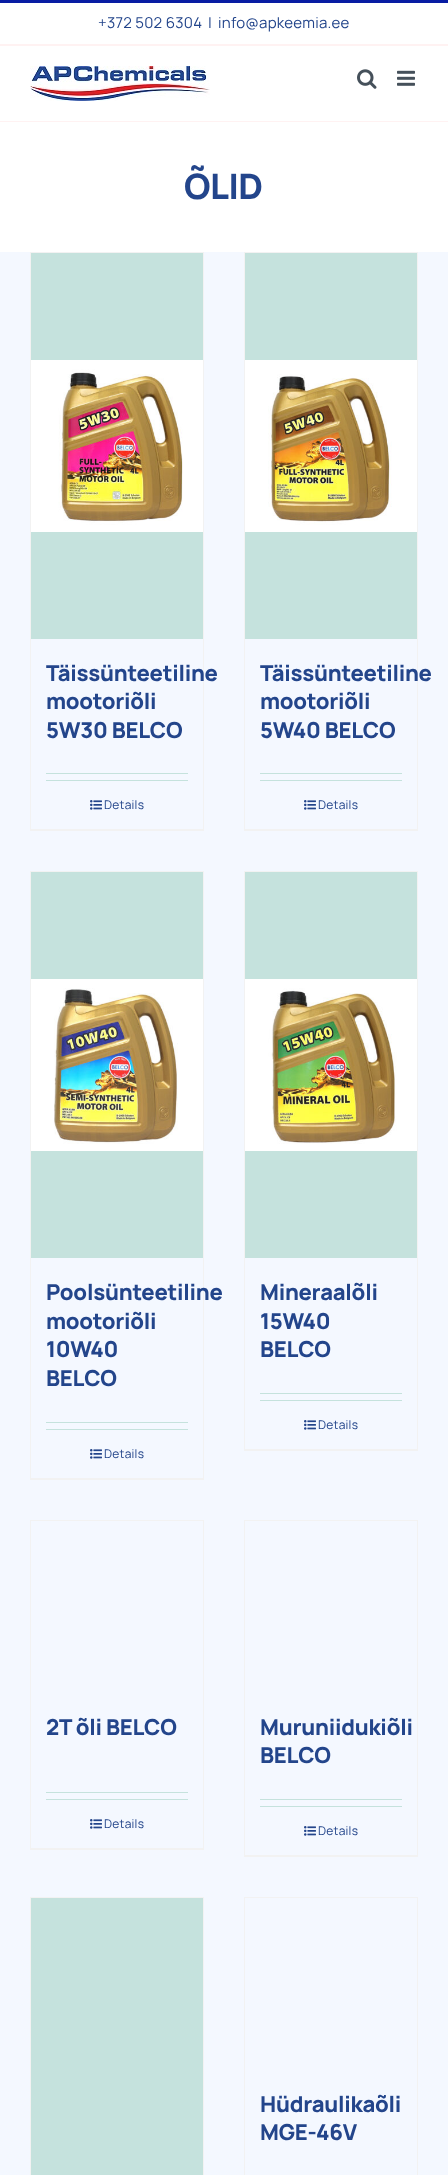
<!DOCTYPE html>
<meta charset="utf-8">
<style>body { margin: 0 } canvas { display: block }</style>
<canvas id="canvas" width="448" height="2175"></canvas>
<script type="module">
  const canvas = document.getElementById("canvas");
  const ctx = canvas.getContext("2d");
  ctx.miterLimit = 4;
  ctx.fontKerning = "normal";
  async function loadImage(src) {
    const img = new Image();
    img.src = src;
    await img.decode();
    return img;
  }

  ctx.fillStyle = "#f4f8ff";
  ctx.fillRect(0, 0, 448, 2175);
  ctx.fillStyle = "#ffffff";
  ctx.fillRect(0, 3, 448, 41);
  ctx.fillStyle = "#081ca3";
  ctx.fillRect(0, 0, 448, 3);
  ctx.fillStyle = "#fff2f2";
  ctx.fillRect(0, 44, 448, 2);
  ctx.letterSpacing = "0.25px";
  ctx.font = "15px Manrope";
  ctx.fillStyle = "#23458b";
  ctx.fillText("+372 502 6304", 98, 28);
  ctx.fillText("|", 208, 28);
  ctx.fillText("info@apkeemia.ee", 218, 28);
  ctx.fillStyle = "#ffffff";
  ctx.fillRect(0, 46, 448, 75);
  ctx.fillStyle = "#fff2f2";
  ctx.fillRect(0, 121, 448, 1);
  ctx.drawImage(await loadImage("img1.png"), 30, 66, 180, 35);
  ctx.drawImage(await loadImage("img2.png"), 357, 69, 20, 20);
  ctx.drawImage(await loadImage("img3.png"), 397, 70, 18, 16);
  ctx.fillStyle = "#ffffff";
  ctx.fillRect(0, 122, 448, 130);
  ctx.letterSpacing = "-0.5px";
  ctx.font = "800 35px Manrope";
  ctx.fillStyle = "#23458b";
  ctx.fillText("ÕLID", 184, 199);
  ctx.fillStyle = "#f2f2f2";
  ctx.fillRect(30, 252, 174, 1);
  ctx.fillRect(203, 252, 1, 579);
  ctx.fillRect(30, 829, 174, 2);
  ctx.fillRect(30, 252, 1, 579);
  ctx.fillStyle = "#c5e2dd";
  ctx.fillRect(31, 253, 172, 386);
  ctx.drawImage(await loadImage("img4.png"), 31, 360, 172, 172);
  ctx.letterSpacing = "-0.25px";
  ctx.font = "800 22px Manrope";
  ctx.fillStyle = "#23458b";
  ctx.fillText("Täissünteetiline", 46, 681);
  ctx.fillText("mootoriõli", 46, 709);
  ctx.fillText("5W30 BELCO", 46, 738);
  ctx.fillStyle = "#c5e2dd";
  ctx.fillRect(46, 773, 142, 1);
  ctx.fillRect(46, 780, 142, 1);
  ctx.drawImage(await loadImage("img5.png"), 90, 800, 12, 10);
  ctx.letterSpacing = "0.25px";
  ctx.font = "12px Manrope";
  ctx.fillStyle = "#23458b";
  ctx.fillText("Details", 104, 809);
  ctx.fillStyle = "#f2f2f2";
  ctx.fillRect(244, 252, 174, 1);
  ctx.fillRect(417, 252, 1, 579);
  ctx.fillRect(244, 829, 174, 2);
  ctx.fillRect(244, 252, 1, 579);
  ctx.fillStyle = "#c5e2dd";
  ctx.fillRect(245, 253, 172, 386);
  ctx.drawImage(await loadImage("img6.png"), 245, 360, 172, 172);
  ctx.letterSpacing = "-0.25px";
  ctx.font = "800 22px Manrope";
  ctx.fillStyle = "#23458b";
  ctx.fillText("Täissünteetiline", 260, 681);
  ctx.fillText("mootoriõli", 260, 709);
  ctx.fillText("5W40 BELCO", 260, 738);
  ctx.fillStyle = "#c5e2dd";
  ctx.fillRect(260, 773, 142, 1);
  ctx.fillRect(260, 780, 142, 1);
  ctx.drawImage(await loadImage("img5.png"), 304, 800, 12, 10);
  ctx.letterSpacing = "0.25px";
  ctx.font = "12px Manrope";
  ctx.fillStyle = "#23458b";
  ctx.fillText("Details", 318, 809);
  ctx.fillStyle = "#f2f2f2";
  ctx.fillRect(30, 871, 174, 1);
  ctx.fillRect(203, 871, 1, 609);
  ctx.fillRect(30, 1478, 174, 2);
  ctx.fillRect(30, 871, 1, 609);
  ctx.fillStyle = "#c5e2dd";
  ctx.fillRect(31, 872, 172, 386);
  ctx.drawImage(await loadImage("img7.png"), 31, 979, 172, 172);
  ctx.letterSpacing = "-0.25px";
  ctx.font = "800 22px Manrope";
  ctx.fillStyle = "#23458b";
  ctx.fillText("Poolsünteetiline", 46, 1300);
  ctx.fillText("mootoriõli", 46, 1329);
  ctx.fillText("10W40", 46, 1357);
  ctx.fillText("BELCO", 46, 1386);
  ctx.fillStyle = "#c5e2dd";
  ctx.fillRect(46, 1422, 142, 1);
  ctx.fillRect(46, 1429, 142, 1);
  ctx.drawImage(await loadImage("img5.png"), 90, 1449, 12, 10);
  ctx.letterSpacing = "0.25px";
  ctx.font = "12px Manrope";
  ctx.fillStyle = "#23458b";
  ctx.fillText("Details", 104, 1458);
  ctx.fillStyle = "#f2f2f2";
  ctx.fillRect(244, 871, 174, 1);
  ctx.fillRect(417, 871, 1, 580);
  ctx.fillRect(244, 1449, 174, 2);
  ctx.fillRect(244, 871, 1, 580);
  ctx.fillStyle = "#c5e2dd";
  ctx.fillRect(245, 872, 172, 386);
  ctx.drawImage(await loadImage("img8.png"), 245, 979, 172, 172);
  ctx.letterSpacing = "-0.25px";
  ctx.font = "800 22px Manrope";
  ctx.fillStyle = "#23458b";
  ctx.fillText("Mineraalõli", 260, 1300);
  ctx.fillText("15W40", 260, 1329);
  ctx.fillText("BELCO", 260, 1357);
  ctx.fillStyle = "#c5e2dd";
  ctx.fillRect(260, 1393, 142, 1);
  ctx.fillRect(260, 1400, 142, 1);
  ctx.drawImage(await loadImage("img5.png"), 304, 1420, 12, 10);
  ctx.letterSpacing = "0.25px";
  ctx.font = "12px Manrope";
  ctx.fillStyle = "#23458b";
  ctx.fillText("Details", 318, 1429);
  ctx.fillStyle = "#f2f2f2";
  ctx.fillRect(30, 1520, 174, 1);
  ctx.fillRect(203, 1520, 1, 330);
  ctx.fillRect(30, 1848, 174, 2);
  ctx.fillRect(30, 1520, 1, 330);
  ctx.letterSpacing = "-0.25px";
  ctx.font = "800 22px Manrope";
  ctx.fillStyle = "#23458b";
  ctx.fillText("2T õli BELCO", 46, 1735);
  ctx.fillStyle = "#c5e2dd";
  ctx.fillRect(46, 1792, 142, 1);
  ctx.fillRect(46, 1799, 142, 1);
  ctx.drawImage(await loadImage("img5.png"), 90, 1819, 12, 10);
  ctx.letterSpacing = "0.25px";
  ctx.font = "12px Manrope";
  ctx.fillStyle = "#23458b";
  ctx.fillText("Details", 104, 1828);
  ctx.fillStyle = "#f2f2f2";
  ctx.fillRect(244, 1520, 174, 1);
  ctx.fillRect(417, 1520, 1, 337);
  ctx.fillRect(244, 1855, 174, 2);
  ctx.fillRect(244, 1520, 1, 337);
  ctx.letterSpacing = "-0.25px";
  ctx.font = "800 22px Manrope";
  ctx.fillStyle = "#23458b";
  ctx.fillText("Muruniidukiõli", 260, 1735);
  ctx.fillText("BELCO", 260, 1763);
  ctx.fillStyle = "#c5e2dd";
  ctx.fillRect(260, 1799, 142, 1);
  ctx.fillRect(260, 1806, 142, 1);
  ctx.drawImage(await loadImage("img5.png"), 304, 1826, 12, 10);
  ctx.letterSpacing = "0.25px";
  ctx.font = "12px Manrope";
  ctx.fillStyle = "#23458b";
  ctx.fillText("Details", 318, 1835);
  ctx.fillStyle = "#f2f2f2";
  ctx.fillRect(30, 1897, 174, 1);
  ctx.fillRect(203, 1897, 1, 278);
  ctx.fillRect(30, 1897, 1, 278);
  ctx.fillStyle = "#c5e2dd";
  ctx.fillRect(31, 1898, 172, 277);
  ctx.fillStyle = "#f2f2f2";
  ctx.fillRect(244, 1897, 174, 1);
  ctx.fillRect(417, 1897, 1, 278);
  ctx.fillRect(244, 1897, 1, 278);
  ctx.letterSpacing = "-0.25px";
  ctx.font = "800 22px Manrope";
  ctx.fillStyle = "#23458b";
  ctx.fillText("Hüdraulikaõli", 260, 2112);
  ctx.fillText("MGE-46V", 260, 2140);
</script>
